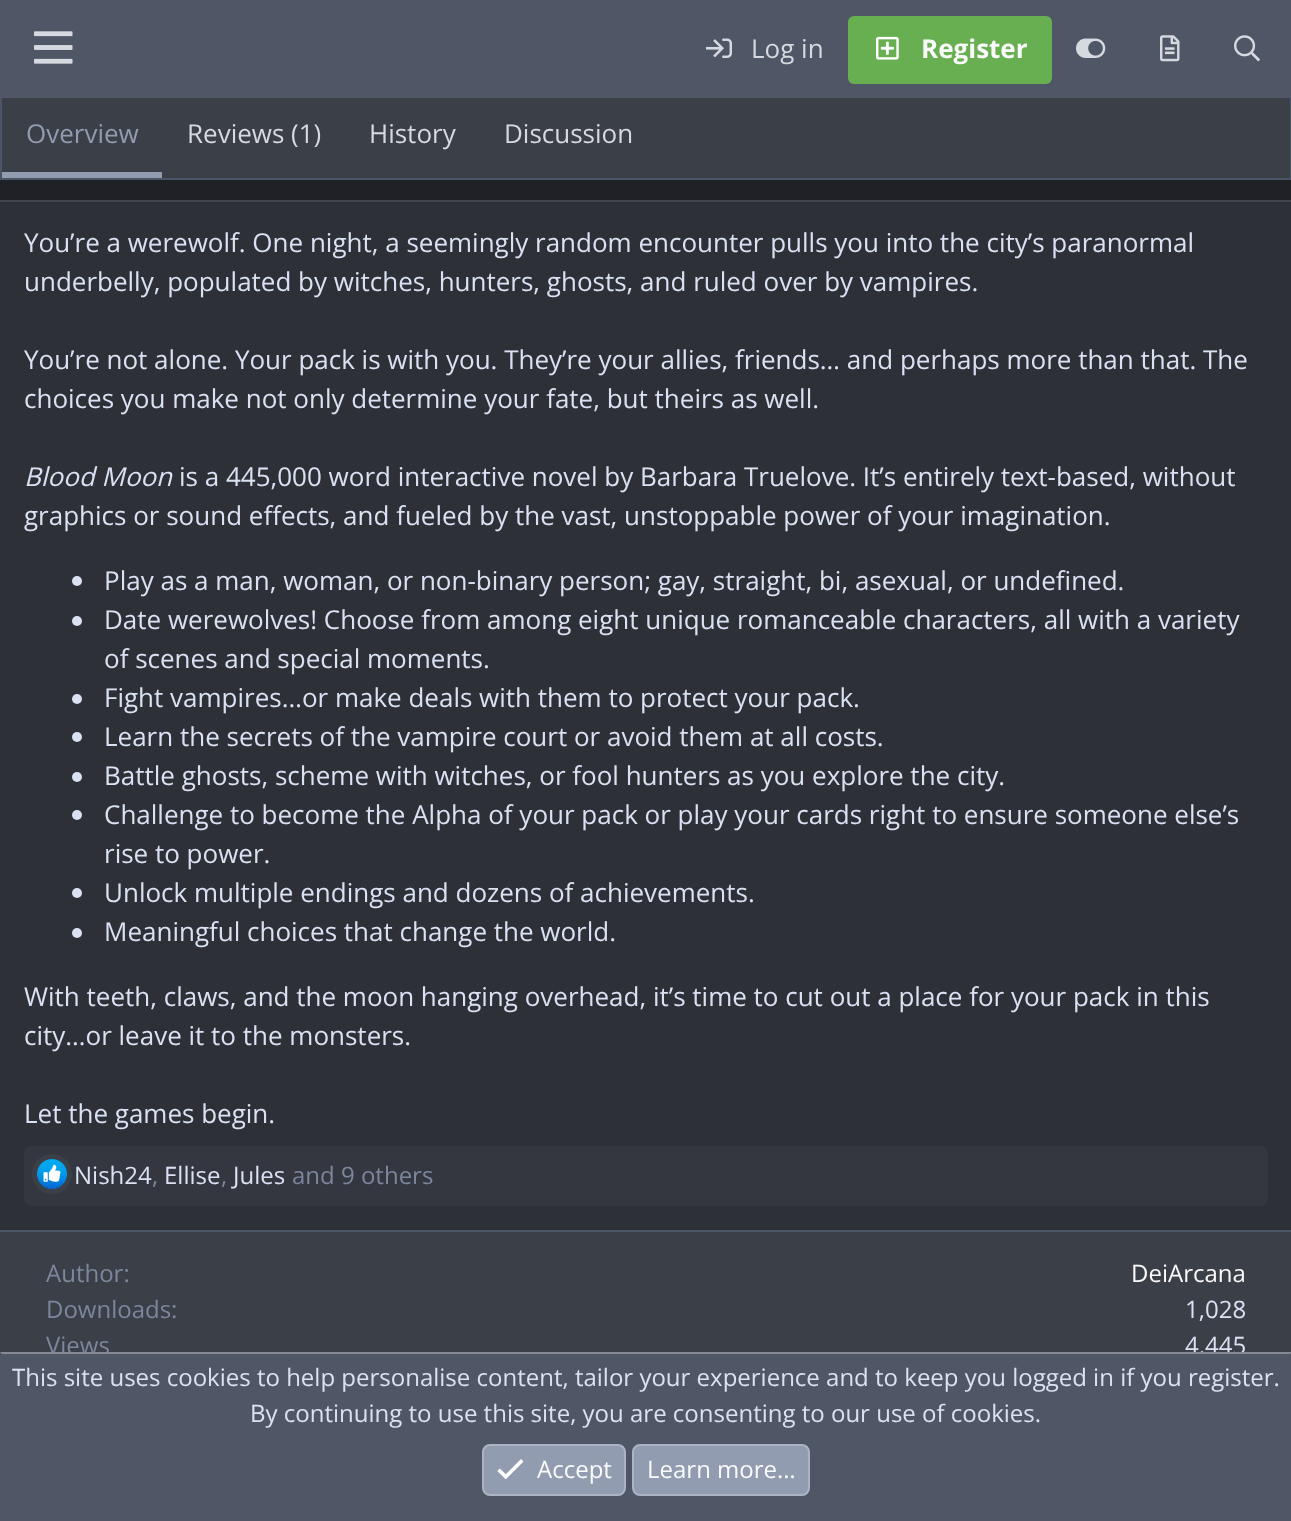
<!DOCTYPE html>
<meta charset="utf-8">
<style>body { margin: 0 } canvas { display: block }</style>
<canvas id="canvas" width="1291" height="1521"></canvas>
<script type="module">
  const canvas = document.getElementById("canvas");
  const ctx = canvas.getContext("2d");
  ctx.miterLimit = 4;
  ctx.fontKerning = "normal";
  async function loadImage(src) {
    const img = new Image();
    img.src = src;
    await img.decode();
    return img;
  }

  ctx.fillStyle = "#1f2126";
  ctx.fillRect(0, 0, 1291, 1521);
  ctx.fillStyle = "#3b3f48";
  ctx.fillRect(2, 98, 1288, 80);
  ctx.strokeStyle = "#4a5568";
  ctx.lineWidth = 2;
  ctx.strokeRect(1, 91, 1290, 88);
  ctx.fillStyle = "#4f5766";
  ctx.fillRect(0, 0, 1291, 98);
  ctx.drawImage(await loadImage("img1.png"), 34, 31, 39, 33);
  ctx.drawImage(await loadImage("img2.png"), 706, 38, 26, 20);
  ctx.font = "26px Open Sans";
  ctx.fillStyle = "#d6d9e0";
  ctx.fillText("Log in", 751, 58);
  ctx.fillStyle = "#67af51";
  ctx.beginPath();
  ctx.roundRect(848, 16, 204, 68, 6);
  ctx.fill();
  ctx.drawImage(await loadImage("img3.png"), 876, 36, 23, 24);
  ctx.font = "bold 26px Open Sans";
  ctx.fillStyle = "#fafafa";
  ctx.fillText("Register", 921, 58);
  ctx.drawImage(await loadImage("img4.png"), 1076, 38, 30, 20);
  ctx.drawImage(await loadImage("img5.png"), 1160, 35, 20, 27);
  ctx.drawImage(await loadImage("img6.png"), 1234, 35, 26, 27);
  ctx.fillStyle = "#919cb0";
  ctx.fillRect(2, 172, 160, 6);
  ctx.font = "26px Open Sans";
  ctx.fillText("Overview", 26, 143);
  ctx.fillStyle = "#d6d9e0";
  ctx.fillText("Reviews (1)", 187, 143);
  ctx.fillText("History", 369, 143);
  ctx.fillText("Discussion", 504, 143);
  ctx.fillStyle = "#2d3037";
  ctx.fillRect(0, 202, 1291, 1028);
  ctx.fillStyle = "#42454b";
  ctx.fillRect(0, 200, 1291, 2);
  ctx.fillStyle = "#dae1f3";
  ctx.fillText("You’re a werewolf. One night, a seemingly random encounter pulls you into the city’s paranormal", 24, 252);
  ctx.fillText("underbelly, populated by witches, hunters, ghosts, and ruled over by vampires.", 24, 291);
  ctx.fillText("You’re not alone. Your pack is with you. They’re your allies, friends… and perhaps more than that. The", 24, 369);
  ctx.fillText("choices you make not only determine your fate, but theirs as well.", 24, 408);
  ctx.font = "italic 26px Open Sans";
  ctx.fillText("Blood Moon", 24, 486);
  ctx.font = "26px Open Sans";
  ctx.fillText("is a 445,000 word interactive novel by Barbara Truelove. It’s entirely text-based, without", 179, 486);
  ctx.fillText("graphics or sound effects, and fueled by the vast, unstoppable power of your imagination.", 24, 525);
  ctx.beginPath();
  ctx.arc(77, 581, 5, 0, Math.PI * 2);
  ctx.fill();
  ctx.fillText("Play as a man, woman, or non-binary person; gay, straight, bi, asexual, or undefined.", 104, 590);
  ctx.beginPath();
  ctx.arc(77, 621, 5, 0, Math.PI * 2);
  ctx.fill();
  ctx.fillText("Date werewolves! Choose from among eight unique romanceable characters, all with a variety", 104, 629);
  ctx.fillText("of scenes and special moments.", 104, 668);
  ctx.beginPath();
  ctx.arc(77, 699, 5, 0, Math.PI * 2);
  ctx.fill();
  ctx.fillText("Fight vampires…or make deals with them to protect your pack.", 104, 707);
  ctx.beginPath();
  ctx.arc(77, 737, 5, 0, Math.PI * 2);
  ctx.fill();
  ctx.fillText("Learn the secrets of the vampire court or avoid them at all costs.", 104, 746);
  ctx.beginPath();
  ctx.arc(77, 777, 5, 0, Math.PI * 2);
  ctx.fill();
  ctx.fillText("Battle ghosts, scheme with witches, or fool hunters as you explore the city.", 104, 785);
  ctx.beginPath();
  ctx.arc(77, 815, 5, 0, Math.PI * 2);
  ctx.fill();
  ctx.fillText("Challenge to become the Alpha of your pack or play your cards right to ensure someone else’s", 104, 824);
  ctx.fillText("rise to power.", 104, 863);
  ctx.beginPath();
  ctx.arc(77, 893, 5, 0, Math.PI * 2);
  ctx.fill();
  ctx.fillText("Unlock multiple endings and dozens of achievements.", 104, 902);
  ctx.beginPath();
  ctx.arc(77, 933, 5, 0, Math.PI * 2);
  ctx.fill();
  ctx.fillText("Meaningful choices that change the world.", 104, 941);
  ctx.fillText("With teeth, claws, and the moon hanging overhead, it’s time to cut out a place for your pack in this", 24, 1006);
  ctx.fillText("city…or leave it to the monsters.", 24, 1045);
  ctx.fillText("Let the games begin.", 24, 1123);
  ctx.fillStyle = "#34373f";
  ctx.beginPath();
  ctx.roundRect(24, 1146, 1244, 60, 8);
  ctx.fill();
  ctx.fillStyle = "#3b3f48";
  ctx.beginPath();
  ctx.arc(52, 1174, 20, 0, Math.PI * 2);
  ctx.fill();
  ctx.drawImage(await loadImage("img7.png"), 37, 1159, 30, 30);
  ctx.font = "24px Open Sans";
  ctx.fillStyle = "#dae1f3";
  ctx.fillText("Nish24", 74, 1184);
  ctx.fillStyle = "#7c869d";
  ctx.fillText(",", 152, 1184);
  ctx.fillStyle = "#dae1f3";
  ctx.fillText("Ellise", 164, 1184);
  ctx.fillStyle = "#7c869d";
  ctx.fillText(",", 221, 1184);
  ctx.fillStyle = "#dae1f3";
  ctx.fillText("Jules", 233, 1184);
  ctx.fillStyle = "#7c869d";
  ctx.fillText("and 9 others", 292, 1184);
  ctx.fillStyle = "#3b3f48";
  ctx.fillRect(0, 1232, 1291, 120);
  ctx.fillStyle = "#4a5568";
  ctx.fillRect(0, 1230, 1291, 2);
  ctx.fillStyle = "#7c869d";
  ctx.fillText("Author:", 46, 1282);
  ctx.fillStyle = "#fafafa";
  ctx.fillText("DeiArcana", 1131, 1282);
  ctx.fillStyle = "#7c869d";
  ctx.fillText("Downloads:", 46, 1318);
  ctx.fillStyle = "#dae1f3";
  ctx.fillText("1,028", 1185, 1318);
  ctx.fillStyle = "#7c869d";
  ctx.fillText("Views", 46, 1354);
  ctx.fillStyle = "#dae1f3";
  ctx.fillText("4,445", 1185, 1354);
  ctx.fillStyle = "#4f5766";
  ctx.fillRect(0, 1352, 1291, 169);
  ctx.fillStyle = "#848994";
  ctx.beginPath();
  ctx.moveTo(0, 1352);
  ctx.lineTo(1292, 1352);
  ctx.lineTo(1290, 1354);
  ctx.lineTo(2, 1354);
  ctx.closePath();
  ctx.fill();
  ctx.fillStyle = "#dae1f3";
  ctx.fillText("This site uses cookies to help personalise content, tailor your experience and to keep you logged in if you register.", 12, 1386);
  ctx.fillText("By continuing to use this site, you are consenting to our use of cookies.", 250, 1422);
  ctx.fillStyle = "#919cb0";
  ctx.beginPath();
  ctx.roundRect(483, 1445, 142, 50, 7);
  ctx.fill();
  ctx.strokeStyle = "#acb4c3";
  ctx.stroke();
  ctx.drawImage(await loadImage("img8.png"), 497, 1459, 27, 21);
  ctx.fillStyle = "#fafafa";
  ctx.fillText("Accept", 537, 1478);
  ctx.fillStyle = "#919cb0";
  ctx.beginPath();
  ctx.roundRect(633, 1445, 176, 50, 7);
  ctx.fill();
  ctx.stroke();
  ctx.fillStyle = "#fafafa";
  ctx.fillText("Learn more…", 647, 1478);
</script>
